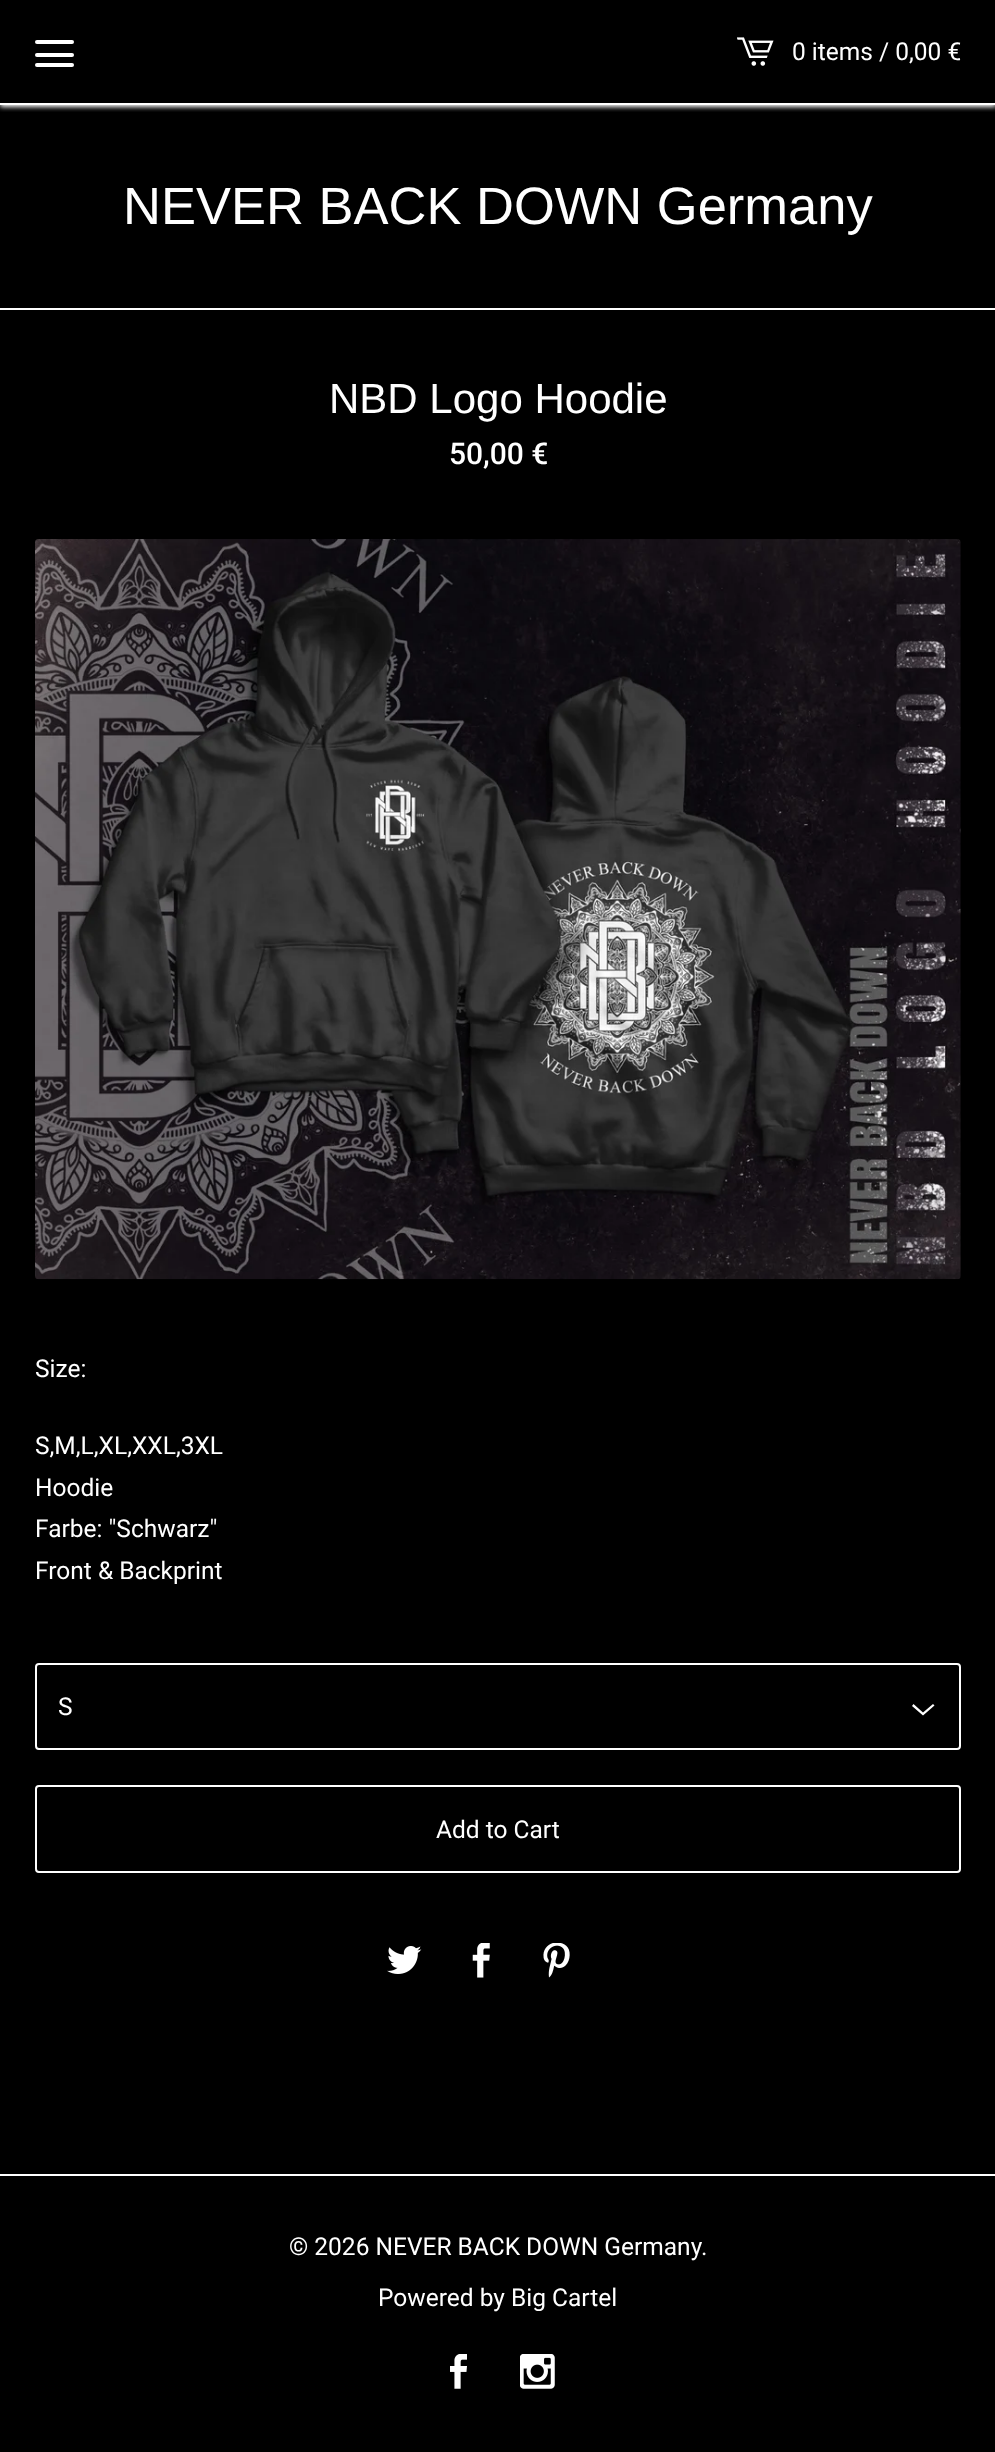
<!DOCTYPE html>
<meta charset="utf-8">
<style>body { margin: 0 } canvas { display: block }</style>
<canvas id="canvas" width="995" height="2452"></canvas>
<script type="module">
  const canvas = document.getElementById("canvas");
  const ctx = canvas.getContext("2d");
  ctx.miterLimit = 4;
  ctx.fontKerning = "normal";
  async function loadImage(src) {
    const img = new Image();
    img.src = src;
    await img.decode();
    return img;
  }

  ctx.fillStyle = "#000000";
  ctx.fillRect(0, 0, 995, 2452);
  ctx.save();
  ctx.beginPath();
  ctx.rect(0, 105, 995, 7);
  ctx.clip();
  ctx.fillStyle = "#ffffff";
  ctx.filter = "blur(2.5px)";
  ctx.beginPath();
  ctx.rect(0, 2, 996, 105);
  ctx.fill();
  ctx.filter = "none";
  ctx.restore();
  ctx.fillStyle = "#ffffff";
  ctx.fillRect(0, 103, 995, 2);
  ctx.beginPath();
  ctx.roundRect(35, 40, 39, 4, 2);
  ctx.fill();
  ctx.beginPath();
  ctx.roundRect(35, 53, 39, 4, 2);
  ctx.fill();
  ctx.beginPath();
  ctx.roundRect(35, 63, 39, 4, 2);
  ctx.fill();
  ctx.drawImage(await loadImage("img1.png"), 737, 37, 37, 29);
  ctx.font = "24.5px Roboto";
  ctx.fillText("0 items / 0,00 €", 792, 60);
  ctx.fillRect(0, 308, 995, 2);
  ctx.font = "52.5px Liberation Sans";
  ctx.fillText("NEVER BACK DOWN Germany", 123, 224);
  ctx.font = "42px Liberation Sans";
  ctx.fillText("NBD Logo Hoodie", 329, 413);
  ctx.font = "500 30px Roboto";
  ctx.fillText("50,00 €", 449, 464);
  ctx.drawImage(await loadImage("img2.png"), 35, 539, 926, 741);
  ctx.font = "24.5px Roboto";
  ctx.fillText("Size:", 35, 1377);
  ctx.fillText("S,M,L,XL,XXL,3XL", 35, 1454);
  ctx.fillText("Hoodie", 35, 1496);
  ctx.fillText("Farbe: \"Schwarz\"", 35, 1537);
  ctx.fillText("Front & Backprint", 35, 1579);
  ctx.beginPath();
  ctx.roundRect(36, 1664, 924, 85, 3);
  ctx.strokeStyle = "#ffffff";
  ctx.lineWidth = 2;
  ctx.stroke();
  ctx.fillText("S", 58, 1715);
  ctx.beginPath();
  ctx.moveTo(934.5, 1705.5);
  ctx.lineTo(923, 1715.5);
  ctx.lineTo(912, 1706);
  ctx.lineTo(913.5, 1704);
  ctx.lineTo(923, 1712.5);
  ctx.lineTo(933, 1704);
  ctx.closePath();
  ctx.fill();
  ctx.beginPath();
  ctx.roundRect(36, 1786, 924, 86, 3);
  ctx.stroke();
  ctx.fillText("Add to Cart", 436, 1838);
  ctx.drawImage(await loadImage("img3.png"), 387, 1946, 35, 28);
  ctx.drawImage(await loadImage("img4.png"), 472, 1943, 18, 35);
  ctx.drawImage(await loadImage("img5.png"), 543, 1943, 27, 35);
  ctx.fillRect(0, 2174, 995, 2);
  ctx.fillText("© 2026 NEVER BACK DOWN Germany.", 289, 2255);
  ctx.fillText("Powered by Big Cartel", 378, 2306);
  ctx.drawImage(await loadImage("img6.png"), 450, 2354, 17, 35);
  ctx.drawImage(await loadImage("img7.png"), 520, 2354, 35, 35);
</script>
